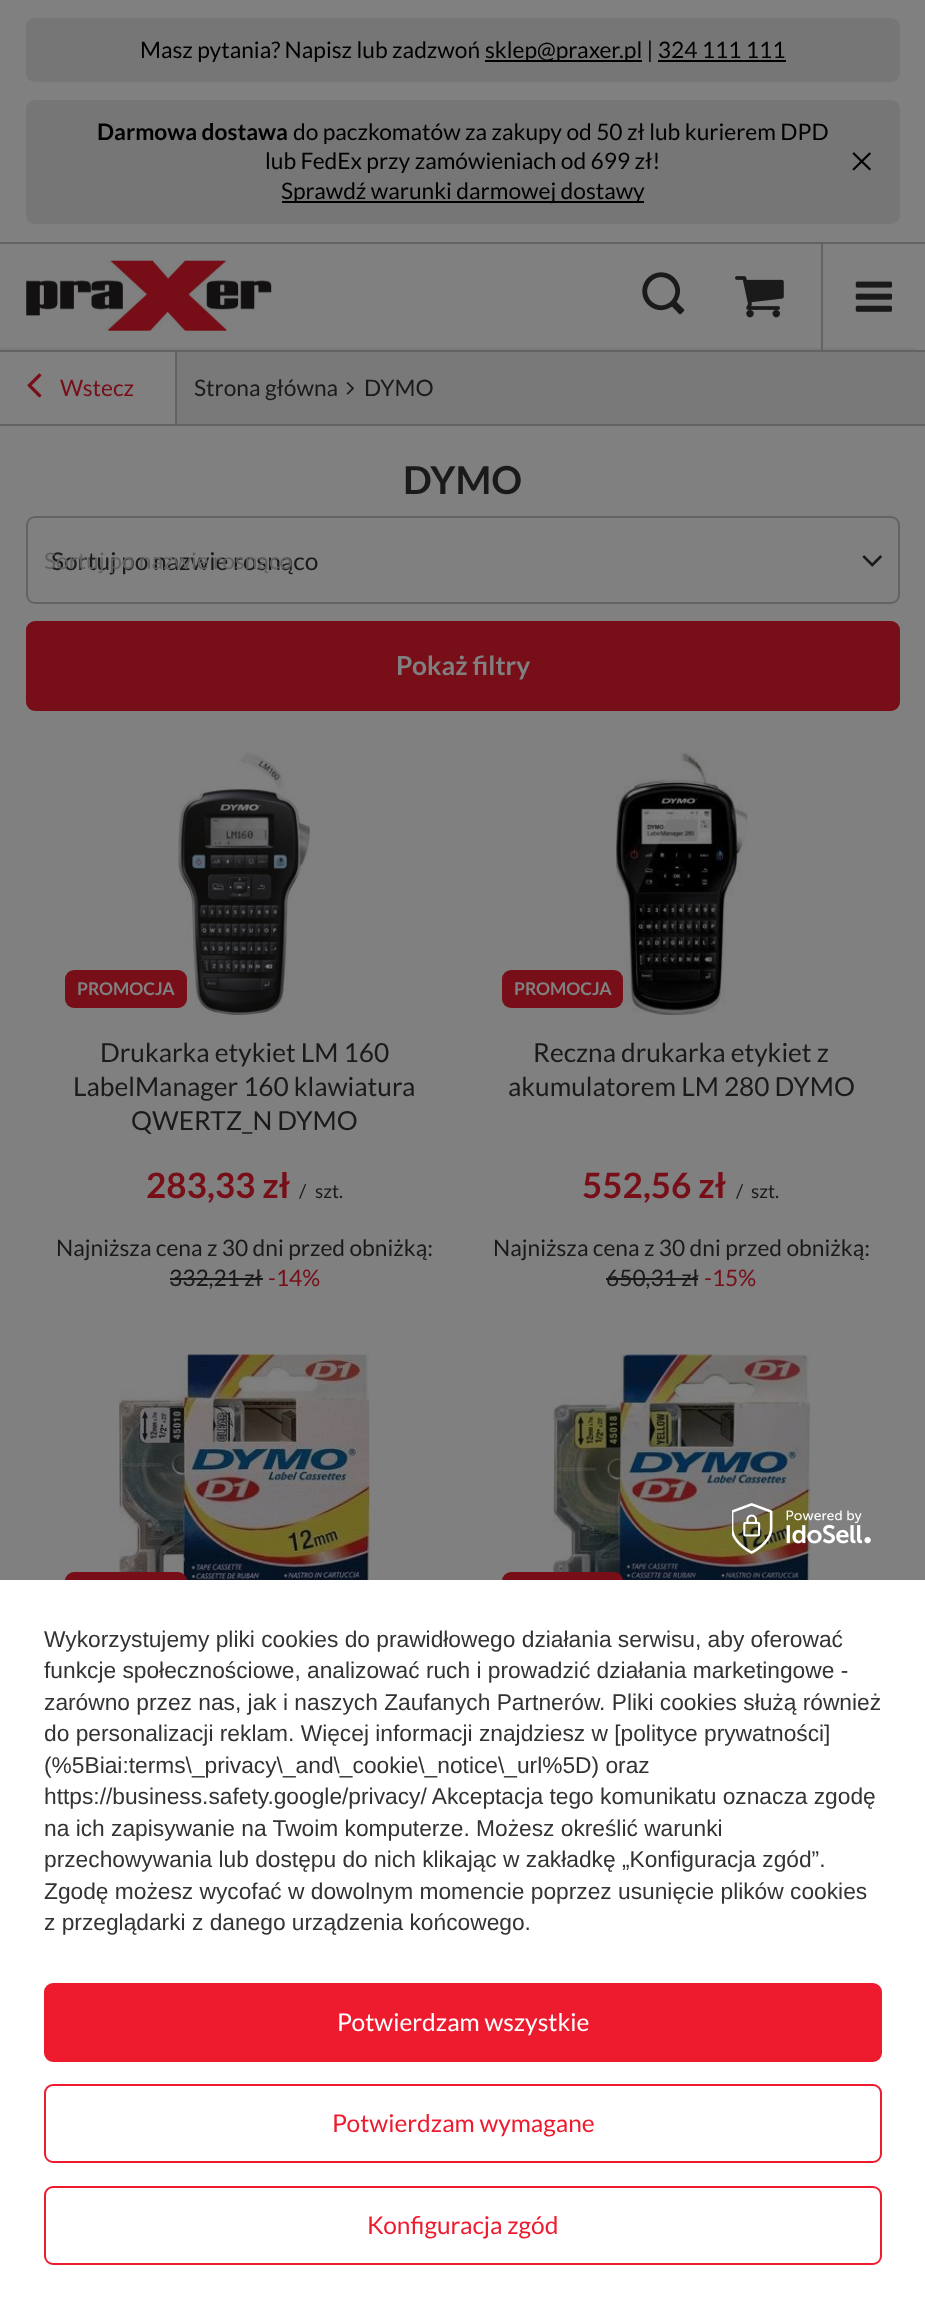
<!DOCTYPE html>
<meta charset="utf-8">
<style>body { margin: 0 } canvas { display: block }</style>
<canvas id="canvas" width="925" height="2308"></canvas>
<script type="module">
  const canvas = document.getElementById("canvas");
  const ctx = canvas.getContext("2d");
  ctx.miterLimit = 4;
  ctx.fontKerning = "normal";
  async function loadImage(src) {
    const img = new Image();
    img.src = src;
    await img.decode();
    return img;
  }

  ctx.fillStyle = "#808080";
  ctx.fillRect(0, 0, 925, 2308);
  ctx.fillStyle = "#626464";
  ctx.fillRect(175, 350, 2, 75);
  ctx.fillRect(0, 350, 925, 2);
  ctx.fillRect(0, 242, 925, 2);
  ctx.fillStyle = "#767676";
  ctx.beginPath();
  ctx.roundRect(26, 18, 874, 64, 9);
  ctx.fill();
  ctx.font = "22.75px Lato";
  ctx.fillStyle = "#000000";
  ctx.fillText("Masz pytania? Napisz lub zadzwoń", 140, 58);
  ctx.fillRect(485, 60, 157, 2);
  ctx.fillText("sklep@praxer.pl | 324 111 111", 485, 58);
  ctx.fillRect(658, 60, 128, 2);
  ctx.fillStyle = "#767676";
  ctx.beginPath();
  ctx.roundRect(26, 100, 874, 124, 9);
  ctx.fill();
  ctx.font = "bold 22.75px Lato";
  ctx.fillStyle = "#000000";
  ctx.fillText("Darmowa dostawa", 97, 140);
  ctx.font = "22.75px Lato";
  ctx.fillText("do paczkomatów za zakupy od 50 zł lub kurierem DPD", 293, 140);
  ctx.fillText("lub FedEx przy zamówieniach od 699 zł!", 265, 169);
  ctx.fillRect(282, 201, 362, 2);
  ctx.fillText("Sprawdź warunki darmowej dostawy", 281, 199);
  ctx.drawImage(await loadImage("img1.png"), 852, 152, 19, 19);
  ctx.drawImage(await loadImage("img2.png"), 26, 260, 246, 71);
  ctx.drawImage(await loadImage("img3.png"), 642, 272, 43, 43);
  ctx.drawImage(await loadImage("img4.png"), 735, 276, 49, 42);
  ctx.fillStyle = "#7a7a7a";
  ctx.fillRect(0, 348, 917, 2);
  ctx.fillStyle = "#626464";
  ctx.fillRect(821, 243, 2, 107);
  ctx.drawImage(await loadImage("img5.png"), 855, 281, 37, 31);
  ctx.drawImage(await loadImage("img6.png"), 27, 373, 15, 25);
  ctx.fillStyle = "#770e18";
  ctx.fillText("Wstecz", 60, 396);
  ctx.fillStyle = "#797979";
  ctx.fillRect(177, 352, 748, 72);
  ctx.fillStyle = "#1a1a1a";
  ctx.fillText("Strona główna", 194, 396);
  ctx.drawImage(await loadImage("img7.png"), 346, 382, 8, 13);
  ctx.fillText("DYMO", 364, 396);
  ctx.fillStyle = "#626464";
  ctx.fillRect(0, 424, 925, 2);
  ctx.font = "bold 38.5px Lato";
  ctx.fillStyle = "#1a1a1a";
  ctx.fillText("DYMO", 403, 494);
  ctx.beginPath();
  ctx.roundRect(27, 517, 872, 86, 8);
  ctx.strokeStyle = "#626464";
  ctx.lineWidth = 2;
  ctx.stroke();
  ctx.font = "24.5px Lato";
  ctx.fillText("Sortuj po nazwie rosnąco", 51, 570);
  ctx.font = "22.75px Lato";
  ctx.fillStyle = "#606060";
  ctx.fillText("Sortuj po nazwie rosnąco", 44, 569);
  ctx.drawImage(await loadImage("img8.png"), 862, 555, 20, 12);
  ctx.fillStyle = "#770e18";
  ctx.beginPath();
  ctx.roundRect(27, 622, 872, 88, 8);
  ctx.fill();
  ctx.strokeStyle = "#770e18";
  ctx.stroke();
  ctx.font = "bold 26.25px Lato";
  ctx.fillStyle = "#808080";
  ctx.fillText("Pokaż filtry", 396, 675);
  ctx.drawImage(await loadImage("img9.png"), 178, 752, 132, 263);
  ctx.fillStyle = "#770e18";
  ctx.beginPath();
  ctx.roundRect(65, 970, 122, 38, 9);
  ctx.fill();
  ctx.font = "bold 17.5px Lato";
  ctx.fillStyle = "#808080";
  ctx.fillText("PROMOCJA", 77, 995);
  ctx.font = "26.25px Lato";
  ctx.fillStyle = "#1a1a1a";
  ctx.fillText("Drukarka etykiet LM 160", 100, 1062);
  ctx.fillText("LabelManager 160 klawiatura", 73, 1096);
  ctx.fillText("QWERTZ_N DYMO", 131, 1130);
  ctx.font = "bold 35px Lato";
  ctx.fillStyle = "#770e18";
  ctx.fillText("283,33 zł", 146, 1198);
  ctx.font = "19px Lato";
  ctx.fillStyle = "#1a1a1a";
  ctx.fillText("/", 299, 1198);
  ctx.fillText("szt.", 315, 1198);
  ctx.font = "22.75px Lato";
  ctx.fillText("Najniższa cena z 30 dni przed obniżką:", 56, 1256);
  ctx.fillText("332,21 zł", 169, 1286);
  ctx.fillRect(170, 1278, 93, 2);
  ctx.fillStyle = "#770e18";
  ctx.fillText("-14%", 268, 1286);
  ctx.drawImage(await loadImage("img10.png"), 616, 752, 132, 263);
  ctx.beginPath();
  ctx.roundRect(502, 970, 121, 38, 9);
  ctx.fill();
  ctx.font = "bold 17.5px Lato";
  ctx.fillStyle = "#808080";
  ctx.fillText("PROMOCJA", 514, 995);
  ctx.font = "26.25px Lato";
  ctx.fillStyle = "#1a1a1a";
  ctx.fillText("Reczna drukarka etykiet z", 533, 1062);
  ctx.fillText("akumulatorem LM 280 DYMO", 508, 1096);
  ctx.font = "bold 35px Lato";
  ctx.fillStyle = "#770e18";
  ctx.fillText("552,56 zł", 582, 1198);
  ctx.font = "19px Lato";
  ctx.fillStyle = "#1a1a1a";
  ctx.fillText("/", 736, 1198);
  ctx.fillText("szt.", 751, 1198);
  ctx.font = "22.75px Lato";
  ctx.fillText("Najniższa cena z 30 dni przed obniżką:", 493, 1256);
  ctx.fillText("650,31 zł", 606, 1286);
  ctx.fillRect(606, 1278, 92, 2);
  ctx.fillStyle = "#770e18";
  ctx.fillText("-15%", 704, 1286);
  ctx.drawImage(await loadImage("img11.png"), 119, 1354, 251, 226);
  ctx.beginPath();
  ctx.roundRect(65, 1572, 122, 38, 9);
  ctx.fill();
  ctx.drawImage(await loadImage("img12.png"), 553, 1354, 258, 226);
  ctx.beginPath();
  ctx.roundRect(502, 1572, 121, 38, 9);
  ctx.fill();
  ctx.fillStyle = "#ffffff";
  ctx.fillRect(0, 1580, 925, 728);
  ctx.drawImage(await loadImage("img13.png"), 732, 1503, 139, 51);
  ctx.font = "22.75px Liberation Sans";
  ctx.fillStyle = "#333333";
  ctx.fillText("Wykorzystujemy pliki cookies do prawidłowego działania serwisu, aby oferować", 44, 1647);
  ctx.fillText("funkcje społecznościowe, analizować ruch i prowadzić działania marketingowe -", 44, 1678);
  ctx.fillText("zarówno przez nas, jak i naszych Zaufanych Partnerów. Pliki cookies służą również", 44, 1710);
  ctx.fillText("do personalizacji reklam. Więcej informacji znajdziesz w [polityce prywatności]", 44, 1741);
  ctx.fillText("(%5Biai:terms\\_privacy\\_and\\_cookie\\_notice\\_url%5D) oraz", 44, 1773);
  ctx.fillText("https://business.safety.google/privacy/ Akceptacja tego komunikatu oznacza zgodę", 44, 1804);
  ctx.fillText("na ich zapisywanie na Twoim komputerze. Możesz określić warunki", 44, 1836);
  ctx.fillText("przechowywania lub dostępu do nich klikając w zakładkę „Konfiguracja zgód”.", 44, 1867);
  ctx.fillText("Zgodę możesz wycofać w dowolnym momencie poprzez usunięcie plików cookies", 44, 1899);
  ctx.fillText("z przeglądarki z danego urządzenia końcowego.", 44, 1930);
  ctx.fillStyle = "#ee1b2f";
  ctx.beginPath();
  ctx.roundRect(45, 1984, 836, 77, 8);
  ctx.fill();
  ctx.strokeStyle = "#ee1b2f";
  ctx.stroke();
  ctx.font = "24.5px Lato";
  ctx.fillStyle = "#ffffff";
  ctx.fillText("Potwierdzam wszystkie", 337, 2031);
  ctx.beginPath();
  ctx.roundRect(45, 2085, 836, 77, 8);
  ctx.stroke();
  ctx.fillStyle = "#ee1b2f";
  ctx.fillText("Potwierdzam wymagane", 332, 2132);
  ctx.beginPath();
  ctx.roundRect(45, 2187, 836, 77, 8);
  ctx.stroke();
  ctx.fillText("Konfiguracja zgód", 367, 2234);
</script>
